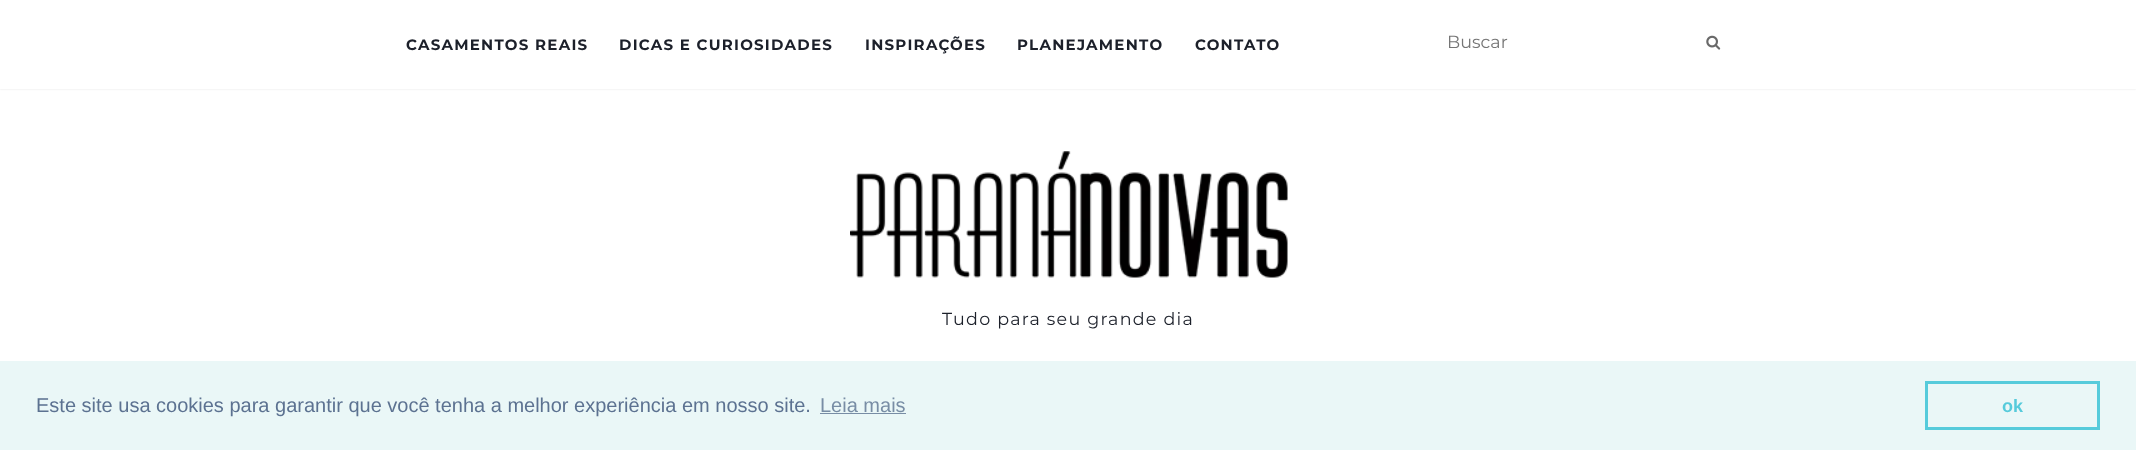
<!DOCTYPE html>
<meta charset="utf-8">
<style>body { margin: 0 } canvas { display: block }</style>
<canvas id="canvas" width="2136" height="450"></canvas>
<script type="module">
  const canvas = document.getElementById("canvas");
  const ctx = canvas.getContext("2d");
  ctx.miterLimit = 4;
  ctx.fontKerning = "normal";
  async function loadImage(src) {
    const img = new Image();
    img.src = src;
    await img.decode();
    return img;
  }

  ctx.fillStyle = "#ffffff";
  ctx.fillRect(0, 0, 2136, 450);
  ctx.fillStyle = "#e3e3e3";
  ctx.filter = "blur(1px)";
  ctx.beginPath();
  ctx.rect(0, 0, 2136, 89);
  ctx.fill();
  ctx.filter = "none";
  ctx.fillStyle = "#ffffff";
  ctx.fillRect(0, 0, 2136, 89);
  ctx.letterSpacing = "1.25px";
  ctx.font = "bold 15px Montserrat";
  ctx.fillStyle = "#1c202a";
  ctx.fillText("CASAMENTOS REAIS", 406, 50);
  ctx.fillText("DICAS E CURIOSIDADES", 619, 50);
  ctx.fillText("INSPIRAÇÕES", 865, 50);
  ctx.fillText("PLANEJAMENTO", 1017, 50);
  ctx.fillText("CONTATO", 1195, 50);
  ctx.letterSpacing = "0px";
  ctx.font = "17.5px Montserrat";
  ctx.fillStyle = "#757575";
  ctx.fillText("Buscar", 1447, 48);
  ctx.drawImage(await loadImage("img1.png"), 1706, 35, 15, 15);
  ctx.drawImage(await loadImage("img2.png"), 850, 151, 438, 127);
  ctx.letterSpacing = "1.25px";
  ctx.fillStyle = "#1c202a";
  ctx.fillText("Tudo para seu grande dia", 942, 325);
  ctx.fillStyle = "#eaf7f7";
  ctx.fillRect(0, 361, 2136, 89);
  ctx.letterSpacing = "0px";
  ctx.font = "20px Liberation Sans";
  ctx.fillStyle = "#5c7291";
  ctx.fillText("Este site usa cookies para garantir que você tenha a melhor experiência em nosso site.", 36, 412);
  ctx.fillStyle = "#788da5";
  ctx.fillText("Leia mais", 820, 412);
  ctx.fillRect(820, 413, 86, 1);
  ctx.strokeStyle = "#56cbdb";
  ctx.lineWidth = 3;
  ctx.strokeRect(1926.5, 382.5, 172, 46);
  ctx.font = "bold 18px Liberation Sans";
  ctx.fillStyle = "#56cbdb";
  ctx.fillText("ok", 2002, 412);
</script>
